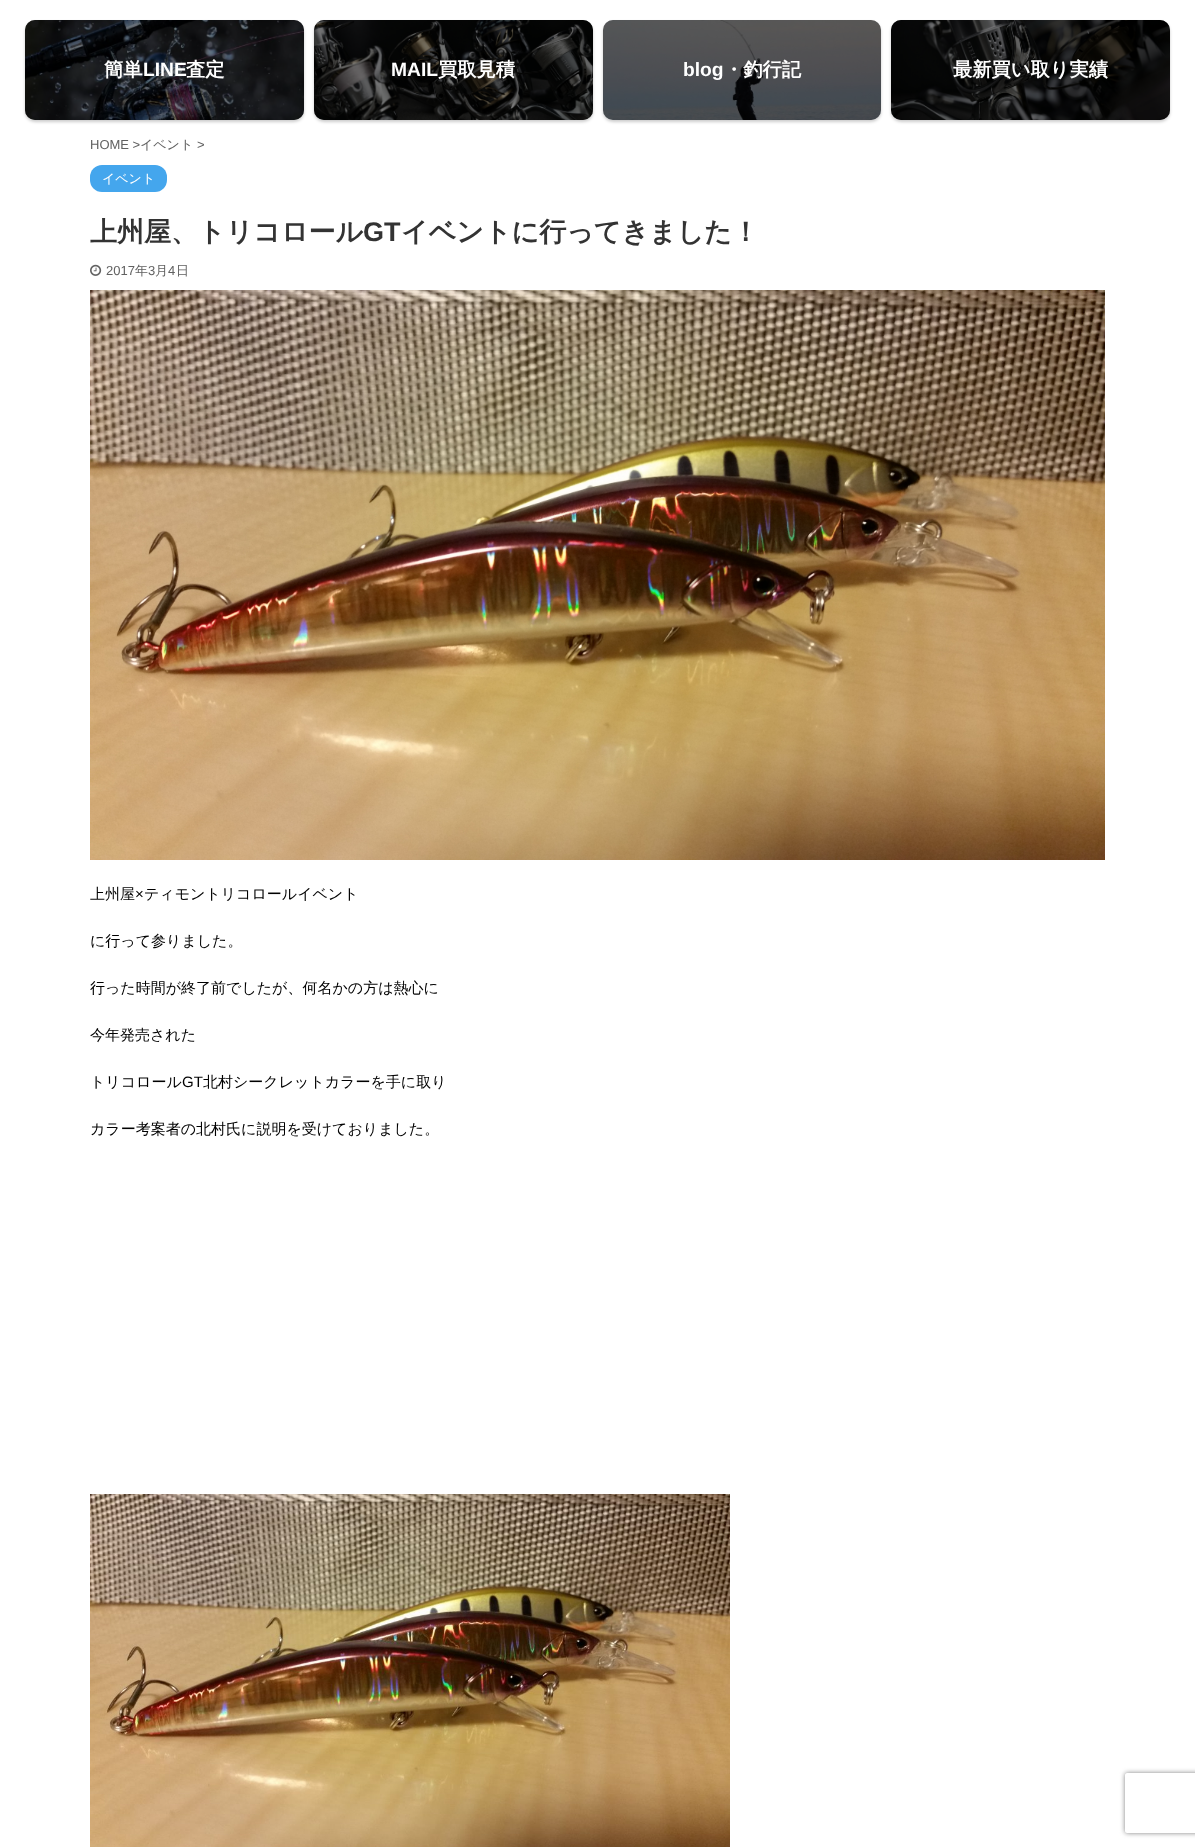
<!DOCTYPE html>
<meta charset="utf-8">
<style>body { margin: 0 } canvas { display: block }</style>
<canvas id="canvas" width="1195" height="1847"></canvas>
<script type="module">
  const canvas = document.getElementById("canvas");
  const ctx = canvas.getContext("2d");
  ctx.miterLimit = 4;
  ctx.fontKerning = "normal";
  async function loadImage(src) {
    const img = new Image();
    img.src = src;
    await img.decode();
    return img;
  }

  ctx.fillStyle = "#ffffff";
  ctx.fillRect(0, 0, 1195, 1847);
  ctx.fillStyle = "rgba(0, 0, 0, 0.2)";
  ctx.filter = "blur(1.5px)";
  ctx.beginPath();
  ctx.roundRect(25, 22, 279, 100, 10);
  ctx.fill();
  ctx.filter = "none";
  ctx.drawImage(await loadImage("img1.png"), 25, 20, 279, 100);
  ctx.fillStyle = "rgba(0, 0, 0, 0.5)";
  ctx.beginPath();
  ctx.roundRect(25, 20, 279, 100, 10);
  ctx.fill();
  ctx.font = "bold 19.25px WenQuanYi Zen Hei";
  ctx.fillStyle = "#ffffff";
  ctx.fillText("簡単", 104, 76);
  ctx.font = "bold 19.25px Liberation Sans";
  ctx.fillText("LINE", 143, 76);
  ctx.font = "bold 19.25px WenQuanYi Zen Hei";
  ctx.fillText("査定", 186, 76);
  ctx.fillStyle = "rgba(0, 0, 0, 0.2)";
  ctx.filter = "blur(1.5px)";
  ctx.beginPath();
  ctx.roundRect(314, 22, 279, 100, 10);
  ctx.fill();
  ctx.filter = "none";
  ctx.drawImage(await loadImage("img2.png"), 314, 20, 279, 100);
  ctx.fillStyle = "rgba(0, 0, 0, 0.5)";
  ctx.beginPath();
  ctx.roundRect(314, 20, 279, 100, 10);
  ctx.fill();
  ctx.font = "bold 19.25px Liberation Sans";
  ctx.fillStyle = "#ffffff";
  ctx.fillText("MAIL", 391, 76);
  ctx.font = "bold 19.25px WenQuanYi Zen Hei";
  ctx.fillText("買取見積", 438, 76);
  ctx.fillStyle = "rgba(0, 0, 0, 0.2)";
  ctx.filter = "blur(1.5px)";
  ctx.beginPath();
  ctx.roundRect(603, 22, 278, 100, 10);
  ctx.fill();
  ctx.filter = "none";
  ctx.drawImage(await loadImage("img3.png"), 603, 20, 278, 100);
  ctx.fillStyle = "rgba(0, 0, 0, 0.5)";
  ctx.beginPath();
  ctx.roundRect(603, 20, 278, 100, 10);
  ctx.fill();
  ctx.font = "bold 19.25px Liberation Sans";
  ctx.fillStyle = "#ffffff";
  ctx.fillText("blog", 683, 76);
  ctx.font = "bold 19.25px WenQuanYi Zen Hei";
  ctx.fillText("・釣行記", 724, 76);
  ctx.fillStyle = "rgba(0, 0, 0, 0.2)";
  ctx.filter = "blur(1.5px)";
  ctx.beginPath();
  ctx.roundRect(891, 22, 279, 100, 10);
  ctx.fill();
  ctx.filter = "none";
  ctx.drawImage(await loadImage("img4.png"), 891, 20, 279, 100);
  ctx.fillStyle = "rgba(0, 0, 0, 0.5)";
  ctx.beginPath();
  ctx.roundRect(891, 20, 279, 100, 10);
  ctx.fill();
  ctx.fillStyle = "#ffffff";
  ctx.fillText("最新買い取り実績", 953, 76);
  ctx.font = "13px Liberation Sans";
  ctx.fillStyle = "#616161";
  ctx.fillText("HOME >", 90, 149);
  ctx.font = "500 13px WenQuanYi Zen Hei";
  ctx.fillText("イベント", 140, 149);
  ctx.font = "13px Liberation Sans";
  ctx.fillText(">", 197, 149);
  ctx.fillStyle = "#44a6ed";
  ctx.beginPath();
  ctx.roundRect(90, 165, 77, 27, 12);
  ctx.fill();
  ctx.font = "500 13px WenQuanYi Zen Hei";
  ctx.fillStyle = "#ffffff";
  ctx.fillText("イベント", 102, 183);
  ctx.font = "bold 27px WenQuanYi Zen Hei";
  ctx.fillStyle = "#333333";
  ctx.fillText("上州屋、トリコロール", 90, 241);
  ctx.font = "bold 27px Liberation Sans";
  ctx.fillText("GT", 363, 241);
  ctx.font = "bold 27px WenQuanYi Zen Hei";
  ctx.fillText("イベントに行ってきました！", 401, 241);
  ctx.drawImage(await loadImage("img5.png"), 90, 264, 12, 12);
  ctx.font = "13px Liberation Sans";
  ctx.fillStyle = "#616161";
  ctx.fillText("2017", 106, 275);
  ctx.font = "500 13px WenQuanYi Zen Hei";
  ctx.fillText("年", 135, 275);
  ctx.font = "13px Liberation Sans";
  ctx.fillText("3", 148, 275);
  ctx.font = "500 13px WenQuanYi Zen Hei";
  ctx.fillText("月", 155, 275);
  ctx.font = "13px Liberation Sans";
  ctx.fillText("4", 168, 275);
  ctx.font = "500 13px WenQuanYi Zen Hei";
  ctx.fillText("日", 176, 275);
  ctx.drawImage(await loadImage("img6.png"), 90, 290, 1015, 570);
  ctx.font = "500 15px WenQuanYi Zen Hei";
  ctx.fillStyle = "#000000";
  ctx.fillText("上州屋", 90, 899);
  ctx.font = "15px Liberation Sans";
  ctx.fillText("×", 135, 899);
  ctx.font = "500 15px WenQuanYi Zen Hei";
  ctx.fillText("ティモントリコロールイベント", 144, 899);
  ctx.fillText("に行って参りました。", 90, 946);
  ctx.fillText("行った時間が終了前でしたが、何名かの方は熱心に", 90, 993);
  ctx.fillText("今年発売された", 90, 1040);
  ctx.fillText("トリコロール", 90, 1087);
  ctx.font = "15px Liberation Sans";
  ctx.fillText("GT", 182, 1087);
  ctx.font = "500 15px WenQuanYi Zen Hei";
  ctx.fillText("北村シークレットカラーを手に取り", 203, 1087);
  ctx.fillText("カラー考案者の北村氏に説明を受けておりました。", 90, 1134);
  ctx.drawImage(await loadImage("img7.png"), 90, 1494, 640, 353);
  ctx.save();
  ctx.beginPath();
  ctx.moveTo(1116, 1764);
  ctx.lineTo(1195, 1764);
  ctx.lineTo(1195, 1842);
  ctx.lineTo(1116, 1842);
  ctx.closePath();
  ctx.moveTo(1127, 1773);
  ctx.lineTo(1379, 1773);
  ctx.bezierCurveTo(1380, 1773, 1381, 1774, 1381, 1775);
  ctx.lineTo(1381, 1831);
  ctx.bezierCurveTo(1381, 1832, 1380, 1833, 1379, 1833);
  ctx.lineTo(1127, 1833);
  ctx.bezierCurveTo(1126, 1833, 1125, 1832, 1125, 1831);
  ctx.lineTo(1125, 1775);
  ctx.bezierCurveTo(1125, 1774, 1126, 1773, 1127, 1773);
  ctx.closePath();
  ctx.clip("evenodd");
  ctx.fillStyle = "#808080";
  ctx.filter = "blur(2.5px)";
  ctx.beginPath();
  ctx.roundRect(1125, 1773, 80, 60, 2);
  ctx.fill();
  ctx.filter = "none";
  ctx.restore();
</script>
